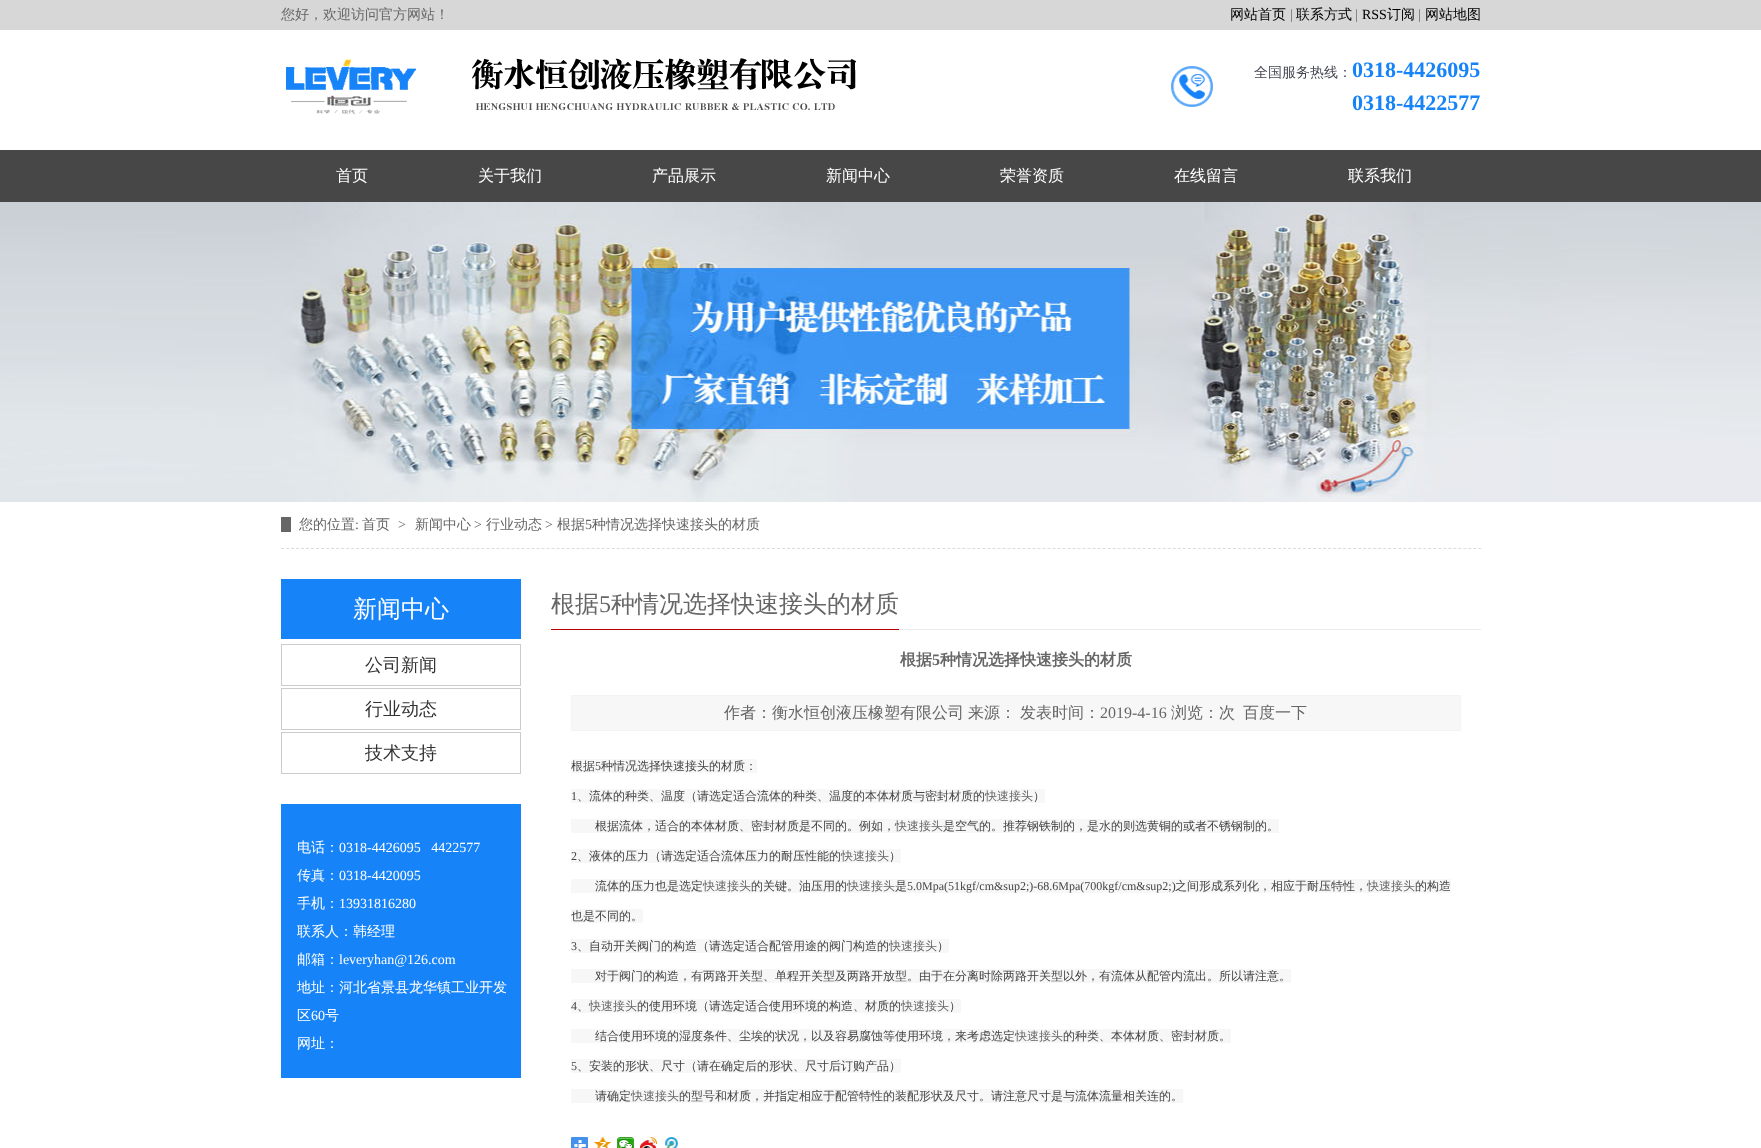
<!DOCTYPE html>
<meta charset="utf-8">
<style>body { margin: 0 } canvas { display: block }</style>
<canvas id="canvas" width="1761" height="1148"></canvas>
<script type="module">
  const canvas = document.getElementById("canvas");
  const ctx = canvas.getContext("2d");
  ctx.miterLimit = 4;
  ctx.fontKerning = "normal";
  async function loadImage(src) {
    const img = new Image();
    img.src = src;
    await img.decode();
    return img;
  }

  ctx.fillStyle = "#ffffff";
  ctx.fillRect(0, 0, 1761, 1148);
  ctx.fillStyle = "#d7d7d7";
  ctx.fillRect(0, 0, 1761, 30);
  ctx.font = "500 14px WenQuanYi Zen Hei";
  ctx.fillStyle = "#666666";
  ctx.fillText("您好，欢迎访问官方网站！", 281, 19);
  ctx.fillStyle = "#000000";
  ctx.fillText("网站首页", 1230, 19);
  ctx.font = "14px Liberation Serif";
  ctx.fillStyle = "#666666";
  ctx.fillText("|", 1290, 19);
  ctx.font = "500 14px WenQuanYi Zen Hei";
  ctx.fillStyle = "#000000";
  ctx.fillText("联系方式", 1296, 19);
  ctx.font = "14px Liberation Serif";
  ctx.fillStyle = "#666666";
  ctx.fillText("|", 1355, 19);
  ctx.fillStyle = "#000000";
  ctx.fillText("RSS", 1362, 19);
  ctx.font = "500 14px WenQuanYi Zen Hei";
  ctx.fillText("订阅", 1387, 19);
  ctx.font = "14px Liberation Serif";
  ctx.fillStyle = "#666666";
  ctx.fillText("|", 1418, 19);
  ctx.font = "500 14px WenQuanYi Zen Hei";
  ctx.fillStyle = "#000000";
  ctx.fillText("网站地图", 1425, 19);
  ctx.drawImage(await loadImage("img1.png"), 286, 58, 570, 57);
  ctx.drawImage(await loadImage("img2.png"), 1171, 66, 42, 41);
  ctx.fillStyle = "#474954";
  ctx.fillText("全国服务热线：", 1254, 77);
  ctx.font = "bold 22px Liberation Serif";
  ctx.fillStyle = "#1683f8";
  ctx.fillText("0318-4426095", 1352, 77);
  ctx.fillText("0318-4422577", 1352, 110);
  ctx.fillStyle = "#474747";
  ctx.fillRect(0, 150, 1761, 52);
  ctx.font = "500 16px WenQuanYi Zen Hei";
  ctx.fillStyle = "#ffffff";
  ctx.fillText("首页", 336, 181);
  ctx.fillText("关于我们", 478, 181);
  ctx.fillText("产品展示", 652, 181);
  ctx.fillText("新闻中心", 826, 181);
  ctx.fillText("荣誉资质", 1000, 181);
  ctx.fillText("在线留言", 1174, 181);
  ctx.fillText("联系我们", 1348, 181);
  ctx.drawImage(await loadImage("img3.png"), 0, 202, 1761, 300);
  ctx.beginPath();
  ctx.moveTo(281, 548.5);
  ctx.lineTo(1481, 548.5);
  ctx.strokeStyle = "#dcdcdc";
  ctx.setLineDash([3, 2.01]);
  ctx.stroke();
  ctx.font = "500 14px WenQuanYi Zen Hei";
  ctx.fillStyle = "#666666";
  ctx.fillText("您的位置", 299, 529);
  ctx.fillRect(281, 517, 10, 15);
  ctx.font = "14px Liberation Serif";
  ctx.fillText(":", 355, 529);
  ctx.font = "500 14px WenQuanYi Zen Hei";
  ctx.fillText("首页", 362, 529);
  ctx.font = "14px Liberation Serif";
  ctx.fillText(">", 398, 529);
  ctx.font = "500 14px WenQuanYi Zen Hei";
  ctx.fillText("新闻中心", 415, 529);
  ctx.font = "14px Liberation Serif";
  ctx.fillText(">", 474, 529);
  ctx.font = "500 14px WenQuanYi Zen Hei";
  ctx.fillText("行业动态", 486, 529);
  ctx.font = "14px Liberation Serif";
  ctx.fillText(">", 545, 529);
  ctx.font = "500 14px WenQuanYi Zen Hei";
  ctx.fillText("根据", 557, 529);
  ctx.font = "14px Liberation Serif";
  ctx.fillText("5", 585, 529);
  ctx.font = "500 14px WenQuanYi Zen Hei";
  ctx.fillText("种情况选择快速接头的材质", 592, 529);
  ctx.fillStyle = "#1683f8";
  ctx.fillRect(281, 579, 240, 60);
  ctx.font = "500 24px WenQuanYi Zen Hei";
  ctx.fillStyle = "#ffffff";
  ctx.fillText("新闻中心", 353, 617);
  ctx.strokeStyle = "#cccccc";
  ctx.setLineDash([]);
  ctx.strokeRect(281.5, 644.5, 239, 41);
  ctx.font = "500 18px WenQuanYi Zen Hei";
  ctx.fillStyle = "#333333";
  ctx.fillText("公司新闻", 365, 671);
  ctx.strokeRect(281.5, 688.5, 239, 41);
  ctx.fillText("行业动态", 365, 715);
  ctx.strokeRect(281.5, 732.5, 239, 41);
  ctx.fillText("技术支持", 365, 759);
  ctx.fillStyle = "#1683f8";
  ctx.fillRect(281, 804, 240, 274);
  ctx.font = "500 14px WenQuanYi Zen Hei";
  ctx.fillStyle = "#ffffff";
  ctx.fillText("电话：", 297, 852);
  ctx.font = "14px Liberation Serif";
  ctx.fillText("0318-4426095   4422577", 339, 852);
  ctx.font = "500 14px WenQuanYi Zen Hei";
  ctx.fillText("传真：", 297, 880);
  ctx.font = "14px Liberation Serif";
  ctx.fillText("0318-4420095", 339, 880);
  ctx.font = "500 14px WenQuanYi Zen Hei";
  ctx.fillText("手机：", 297, 908);
  ctx.font = "14px Liberation Serif";
  ctx.fillText("13931816280", 339, 908);
  ctx.font = "500 14px WenQuanYi Zen Hei";
  ctx.fillText("联系人：韩经理", 297, 936);
  ctx.fillText("邮箱：", 297, 964);
  ctx.font = "14px Liberation Serif";
  ctx.fillText("leveryhan@126.com", 339, 964);
  ctx.font = "500 14px WenQuanYi Zen Hei";
  ctx.fillText("地址：河北省景县龙华镇工业开发", 297, 992);
  ctx.fillText("区", 297, 1020);
  ctx.font = "14px Liberation Serif";
  ctx.fillText("60", 311, 1020);
  ctx.font = "500 14px WenQuanYi Zen Hei";
  ctx.fillText("号", 325, 1020);
  ctx.fillText("网址：", 297, 1048);
  ctx.fillStyle = "#ebebeb";
  ctx.fillRect(899, 629, 582, 1);
  ctx.fillStyle = "#bb0000";
  ctx.fillRect(551, 629, 348, 1);
  ctx.font = "500 24px WenQuanYi Zen Hei";
  ctx.fillStyle = "#666666";
  ctx.fillText("根据", 551, 612);
  ctx.font = "24px Liberation Serif";
  ctx.fillText("5", 599, 612);
  ctx.font = "500 24px WenQuanYi Zen Hei";
  ctx.fillText("种情况选择快速接头的材质", 611, 612);
  ctx.font = "bold 16px WenQuanYi Zen Hei";
  ctx.fillText("根据", 900, 665);
  ctx.font = "bold 16px Liberation Serif";
  ctx.fillText("5", 932, 665);
  ctx.font = "bold 16px WenQuanYi Zen Hei";
  ctx.fillText("种情况选择快速接头的材质", 940, 665);
  ctx.fillStyle = "#f7f7f7";
  ctx.beginPath();
  ctx.rect(571.5, 695.5, 889, 35);
  ctx.fill();
  ctx.strokeStyle = "#f3f3f3";
  ctx.stroke();
  ctx.font = "500 16px WenQuanYi Zen Hei";
  ctx.fillStyle = "#666666";
  ctx.fillText("作者：衡水恒创液压橡塑有限公司", 724, 718);
  ctx.fillText("来源：", 968, 718);
  ctx.fillText("发表时间：", 1020, 718);
  ctx.font = "16px Liberation Serif";
  ctx.fillText("2019-4-16", 1100, 718);
  ctx.font = "500 16px WenQuanYi Zen Hei";
  ctx.fillText("浏览：次", 1171, 718);
  ctx.fillText("百度一下", 1243, 718);
  ctx.fillStyle = "#f7f7f7";
  ctx.fillRect(571, 759, 186, 14);
  ctx.font = "500 12px WenQuanYi Zen Hei";
  ctx.fillStyle = "#444444";
  ctx.fillText("根据", 571, 770);
  ctx.font = "12px Liberation Serif";
  ctx.fillText("5", 595, 770);
  ctx.font = "500 12px WenQuanYi Zen Hei";
  ctx.fillText("种情况选择快速接头的材质：", 601, 770);
  ctx.fillStyle = "#f7f7f7";
  ctx.fillRect(571, 789, 474, 14);
  ctx.font = "12px Liberation Serif";
  ctx.fillStyle = "#444444";
  ctx.fillText("1", 571, 800);
  ctx.font = "500 12px WenQuanYi Zen Hei";
  ctx.fillText("、流体的种类、温度（请选定适合流体的种类、温度的本体材质与密封材质的", 577, 800);
  ctx.fillStyle = "#666666";
  ctx.fillText("快速接头", 985, 800);
  ctx.fillStyle = "#444444";
  ctx.fillText("）", 1033, 800);
  ctx.fillStyle = "#f7f7f7";
  ctx.fillRect(571, 819, 708, 14);
  ctx.fillStyle = "#444444";
  ctx.fillText("根据流体，适合的本体材质、密封材质是不同的。例如，", 595, 830);
  ctx.fillStyle = "#666666";
  ctx.fillText("快速接头", 895, 830);
  ctx.fillStyle = "#444444";
  ctx.fillText("是空气的。推荐钢铁制的，是水的则选黄铜的或者不锈钢制的。", 943, 830);
  ctx.fillStyle = "#f7f7f7";
  ctx.fillRect(571, 849, 330, 14);
  ctx.font = "12px Liberation Serif";
  ctx.fillStyle = "#444444";
  ctx.fillText("2", 571, 860);
  ctx.font = "500 12px WenQuanYi Zen Hei";
  ctx.fillText("、液体的压力（请选定适合流体压力的耐压性能的", 577, 860);
  ctx.fillStyle = "#666666";
  ctx.fillText("快速接头", 841, 860);
  ctx.fillStyle = "#444444";
  ctx.fillText("）", 889, 860);
  ctx.fillStyle = "#f7f7f7";
  ctx.fillRect(571, 879, 880, 14);
  ctx.fillStyle = "#444444";
  ctx.fillText("流体的压力也是选定", 595, 890);
  ctx.fillStyle = "#666666";
  ctx.fillText("快速接头", 703, 890);
  ctx.fillStyle = "#444444";
  ctx.fillText("的关键。油压用的", 751, 890);
  ctx.fillStyle = "#666666";
  ctx.fillText("快速接头", 847, 890);
  ctx.fillStyle = "#444444";
  ctx.fillText("是", 895, 890);
  ctx.font = "12px Liberation Serif";
  ctx.fillText("5.0Mpa(51kgf/cm&sup2;)-68.6Mpa(700kgf/cm&sup2;)", 907, 890);
  ctx.font = "500 12px WenQuanYi Zen Hei";
  ctx.fillText("之间形成系列化，相应于耐压特性，", 1175, 890);
  ctx.fillStyle = "#666666";
  ctx.fillText("快速接头", 1367, 890);
  ctx.fillStyle = "#444444";
  ctx.fillText("的构造", 1415, 890);
  ctx.fillStyle = "#f7f7f7";
  ctx.fillRect(571, 909, 72, 14);
  ctx.fillStyle = "#444444";
  ctx.fillText("也是不同的。", 571, 920);
  ctx.fillStyle = "#f7f7f7";
  ctx.fillRect(571, 939, 378, 14);
  ctx.font = "12px Liberation Serif";
  ctx.fillStyle = "#444444";
  ctx.fillText("3", 571, 950);
  ctx.font = "500 12px WenQuanYi Zen Hei";
  ctx.fillText("、自动开关阀门的构造（请选定适合配管用途的阀门构造的", 577, 950);
  ctx.fillStyle = "#666666";
  ctx.fillText("快速接头", 889, 950);
  ctx.fillStyle = "#444444";
  ctx.fillText("）", 937, 950);
  ctx.fillStyle = "#f7f7f7";
  ctx.fillRect(571, 969, 720, 14);
  ctx.fillStyle = "#444444";
  ctx.fillText("对于阀门的构造，有两路开关型、单程开关型及两路开放型。由于在分离时除两路开关型以外，有流体从配管内流出。所以请注意。", 595, 980);
  ctx.fillStyle = "#f7f7f7";
  ctx.fillRect(571, 999, 390, 14);
  ctx.font = "12px Liberation Serif";
  ctx.fillStyle = "#444444";
  ctx.fillText("4", 571, 1010);
  ctx.font = "500 12px WenQuanYi Zen Hei";
  ctx.fillStyle = "#666666";
  ctx.fillText("快速接头", 589, 1010);
  ctx.fillStyle = "#444444";
  ctx.fillText("的使用环境（请选定适合使用环境的构造、材质的", 637, 1010);
  ctx.fillStyle = "#666666";
  ctx.fillText("快速接头", 901, 1010);
  ctx.fillStyle = "#444444";
  ctx.fillText("）", 949, 1010);
  ctx.fillText("、", 577, 1010);
  ctx.fillStyle = "#f7f7f7";
  ctx.fillRect(571, 1029, 660, 14);
  ctx.fillStyle = "#444444";
  ctx.fillText("结合使用环境的湿度条件、尘埃的状况，以及容易腐蚀等使用环境，来考虑选定", 595, 1040);
  ctx.fillStyle = "#666666";
  ctx.fillText("快速接头", 1015, 1040);
  ctx.fillStyle = "#444444";
  ctx.fillText("的种类、本体材质、密封材质。", 1063, 1040);
  ctx.fillStyle = "#f7f7f7";
  ctx.fillRect(571, 1059, 330, 14);
  ctx.font = "12px Liberation Serif";
  ctx.fillStyle = "#444444";
  ctx.fillText("5", 571, 1070);
  ctx.font = "500 12px WenQuanYi Zen Hei";
  ctx.fillText("、安装的形状、尺寸（请在确定后的形状、尺寸后订购产品）", 577, 1070);
  ctx.fillStyle = "#f7f7f7";
  ctx.fillRect(571, 1089, 612, 14);
  ctx.fillStyle = "#444444";
  ctx.fillText("请确定", 595, 1100);
  ctx.fillStyle = "#666666";
  ctx.fillText("快速接头", 631, 1100);
  ctx.fillStyle = "#444444";
  ctx.fillText("的型号和材质，并指定相应于配管特性的装配形状及尺寸。请注意尺寸是与流体流量相关连的。", 679, 1100);
  ctx.drawImage(await loadImage("img4.png"), 571, 1137, 17, 11);
  ctx.drawImage(await loadImage("img5.png"), 594, 1137, 17, 11);
  ctx.drawImage(await loadImage("img6.png"), 617, 1137, 17, 11);
  ctx.drawImage(await loadImage("img7.png"), 640, 1137, 17, 11);
  ctx.drawImage(await loadImage("img8.png"), 665, 1137, 13, 11);
</script>
